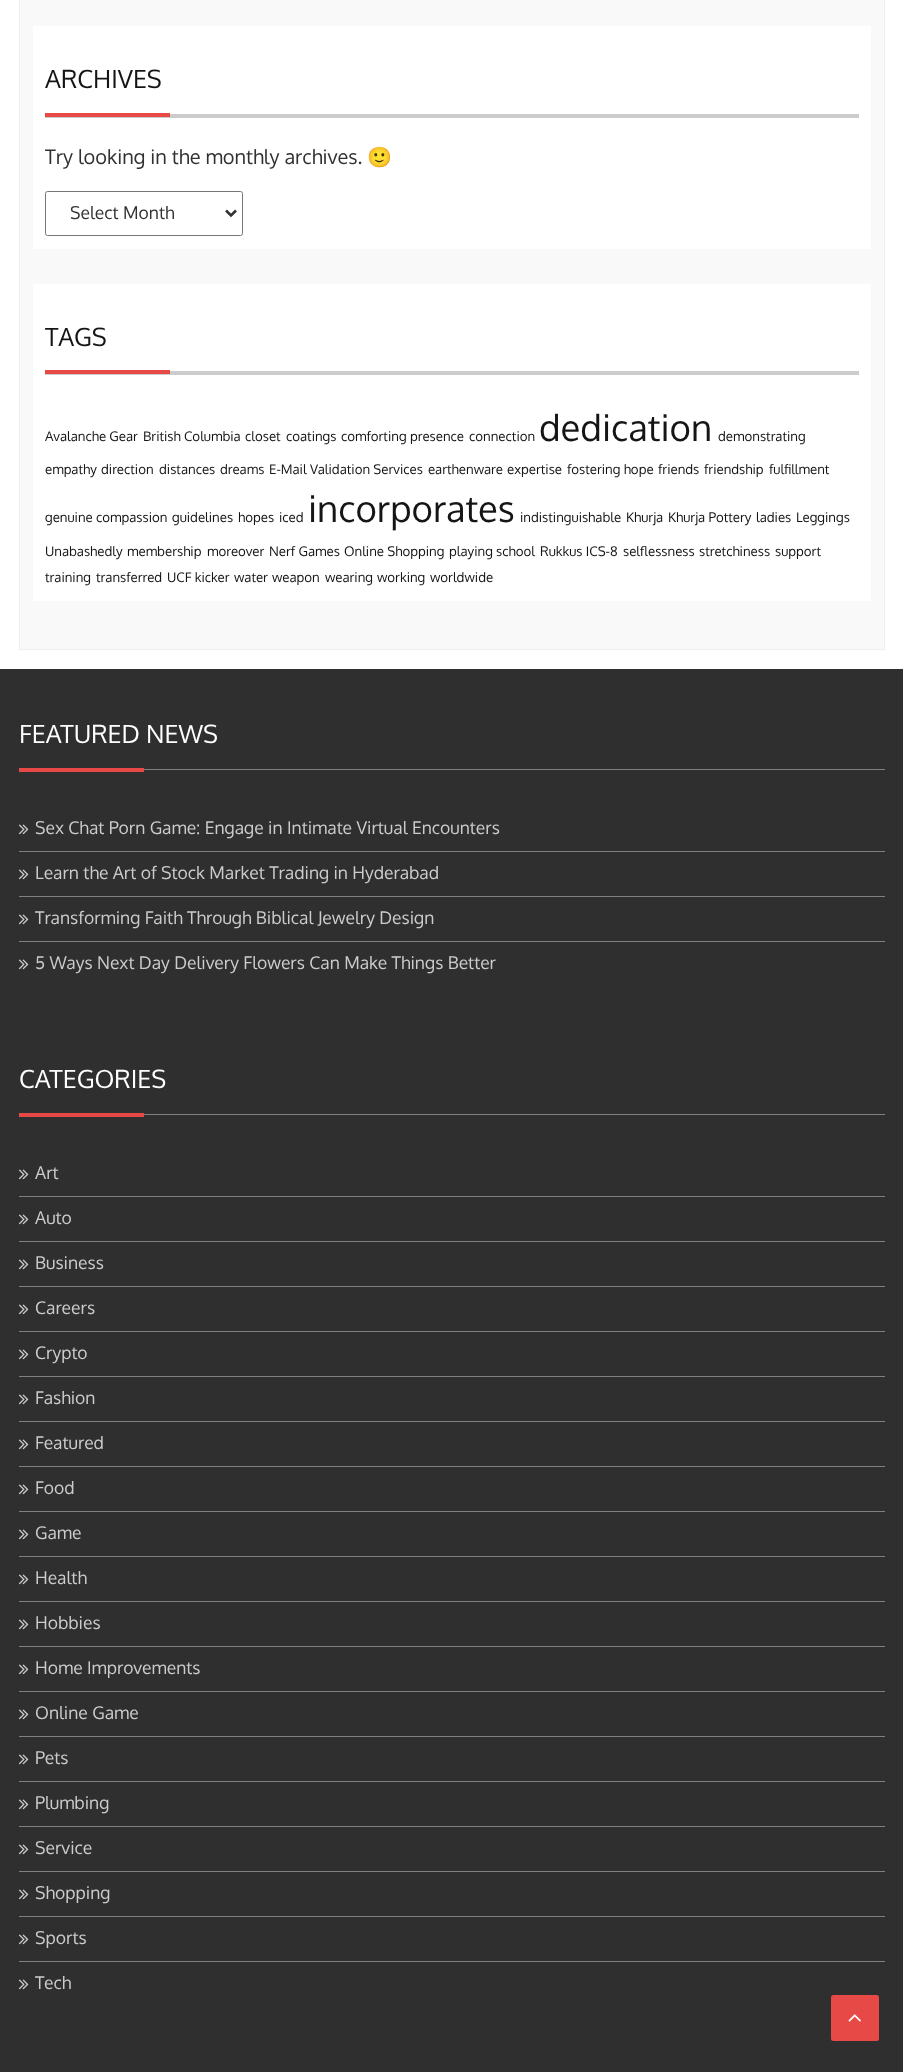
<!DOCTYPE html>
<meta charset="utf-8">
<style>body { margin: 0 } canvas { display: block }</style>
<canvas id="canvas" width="903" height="2072"></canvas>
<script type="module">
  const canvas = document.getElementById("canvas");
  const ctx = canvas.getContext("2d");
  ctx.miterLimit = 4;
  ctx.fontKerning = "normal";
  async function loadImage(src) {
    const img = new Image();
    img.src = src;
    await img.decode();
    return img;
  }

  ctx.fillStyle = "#ffffff";
  ctx.fillRect(0, 0, 903, 2072);
  ctx.fillStyle = "#f9f9f9";
  ctx.beginPath();
  ctx.rect(19.5, -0.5, 865, 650);
  ctx.fill();
  ctx.strokeStyle = "#efefef";
  ctx.stroke();
  ctx.fillStyle = "#ffffff";
  ctx.fillRect(33, 26, 838, 223);
  ctx.fillStyle = "#cccccc";
  ctx.fillRect(45, 114, 814, 4);
  ctx.font = "25px Oxygen";
  ctx.fillStyle = "#151515";
  ctx.fillText("ARCHIVES", 45, 88);
  ctx.fillStyle = "#e64946";
  ctx.fillRect(45, 113, 125, 4);
  ctx.font = "20px Oxygen";
  ctx.fillStyle = "#313131";
  ctx.fillText("Try looking in the monthly archives.", 45, 164);
  ctx.font = "20px Noto Color Emoji";
  ctx.fillText("🙂", 367, 164);
  ctx.beginPath();
  ctx.roundRect(45.5, 191.5, 197, 44, 2);
  ctx.strokeStyle = "#767676";
  ctx.stroke();
  ctx.beginPath();
  ctx.moveTo(226, 210.5);
  ctx.lineTo(231, 215.5);
  ctx.lineTo(236, 210.5);
  ctx.strokeStyle = "#313131";
  ctx.lineWidth = 2.5;
  ctx.stroke();
  ctx.font = "17.5px Oxygen";
  ctx.fillText("Select Month", 70, 219);
  ctx.fillStyle = "#ffffff";
  ctx.fillRect(33, 284, 838, 317);
  ctx.fillStyle = "#cccccc";
  ctx.fillRect(45, 371, 814, 4);
  ctx.font = "25px Oxygen";
  ctx.fillStyle = "#151515";
  ctx.fillText("TAGS", 45, 346);
  ctx.fillStyle = "#e64946";
  ctx.fillRect(45, 370, 125, 4);
  ctx.font = "13.25px Oxygen";
  ctx.fillStyle = "#151515";
  ctx.fillText("Avalanche Gear", 45, 441);
  ctx.fillText("British Columbia", 143, 441);
  ctx.fillText("closet", 245, 441);
  ctx.fillText("coatings", 286, 441);
  ctx.fillText("comforting presence", 341, 441);
  ctx.fillText("connection", 469, 441);
  ctx.font = "36.5px Oxygen";
  ctx.fillText("dedication", 539, 441);
  ctx.font = "13.25px Oxygen";
  ctx.fillText("demonstrating", 718, 441);
  ctx.fillText("empathy", 45, 474);
  ctx.fillText("direction", 101, 474);
  ctx.fillText("distances", 159, 474);
  ctx.fillText("dreams", 220, 474);
  ctx.fillText("E-Mail Validation Services", 269, 474);
  ctx.fillText("earthenware", 428, 474);
  ctx.fillText("expertise", 507, 474);
  ctx.fillText("fostering hope", 567, 474);
  ctx.fillText("friends", 658, 474);
  ctx.fillText("friendship", 704, 474);
  ctx.fillText("fulfillment", 769, 474);
  ctx.fillText("genuine compassion", 45, 522);
  ctx.fillText("guidelines", 172, 522);
  ctx.fillText("hopes", 238, 522);
  ctx.fillText("iced", 279, 522);
  ctx.font = "36.5px Oxygen";
  ctx.fillText("incorporates", 308, 522);
  ctx.font = "13.25px Oxygen";
  ctx.fillText("indistinguishable", 520, 522);
  ctx.fillText("Khurja", 626, 522);
  ctx.fillText("Khurja Pottery", 668, 522);
  ctx.fillText("ladies", 756, 522);
  ctx.fillText("Leggings", 796, 522);
  ctx.fillText("Unabashedly", 45, 556);
  ctx.fillText("membership", 127, 556);
  ctx.fillText("moreover", 207, 556);
  ctx.fillText("Nerf Games", 269, 556);
  ctx.fillText("Online Shopping", 344, 556);
  ctx.fillText("playing school", 449, 556);
  ctx.fillText("Rukkus ICS-8", 540, 556);
  ctx.fillText("selflessness", 623, 556);
  ctx.fillText("stretchiness", 699, 556);
  ctx.fillText("support", 775, 556);
  ctx.fillText("training", 45, 582);
  ctx.fillText("transferred", 96, 582);
  ctx.fillText("UCF kicker", 167, 582);
  ctx.fillText("water", 234, 582);
  ctx.fillText("weapon", 272, 582);
  ctx.fillText("wearing", 325, 582);
  ctx.fillText("working", 377, 582);
  ctx.fillText("worldwide", 430, 582);
  ctx.fillStyle = "#2f2f2f";
  ctx.fillRect(0, 669, 903, 1403);
  ctx.fillStyle = "#808080";
  ctx.fillRect(144, 769, 741, 1);
  ctx.font = "25px Oxygen";
  ctx.fillStyle = "#ffffff";
  ctx.fillText("FEATURED NEWS", 19, 743);
  ctx.fillStyle = "#e64946";
  ctx.fillRect(19, 768, 125, 4);
  ctx.drawImage(await loadImage("img1.png"), 18, 824, 11, 11);
  ctx.font = "17.5px Oxygen";
  ctx.fillStyle = "#cccccc";
  ctx.fillText("Sex Chat Porn Game: Engage in Intimate Virtual Encounters", 35, 834);
  ctx.fillStyle = "#808080";
  ctx.fillRect(19, 851, 866, 1);
  ctx.drawImage(await loadImage("img1.png"), 18, 869, 11, 11);
  ctx.fillStyle = "#cccccc";
  ctx.fillText("Learn the Art of Stock Market Trading in Hyderabad", 35, 879);
  ctx.fillStyle = "#808080";
  ctx.fillRect(19, 896, 866, 1);
  ctx.drawImage(await loadImage("img1.png"), 18, 914, 11, 11);
  ctx.fillStyle = "#cccccc";
  ctx.fillText("Transforming Faith Through Biblical Jewelry Design", 35, 924);
  ctx.fillStyle = "#808080";
  ctx.fillRect(19, 941, 866, 1);
  ctx.drawImage(await loadImage("img1.png"), 18, 959, 11, 11);
  ctx.fillStyle = "#cccccc";
  ctx.fillText("5 Ways Next Day Delivery Flowers Can Make Things Better", 35, 969);
  ctx.fillStyle = "#808080";
  ctx.fillRect(144, 1114, 741, 1);
  ctx.font = "25px Oxygen";
  ctx.fillStyle = "#ffffff";
  ctx.fillText("CATEGORIES", 19, 1088);
  ctx.fillStyle = "#e64946";
  ctx.fillRect(19, 1113, 125, 4);
  ctx.drawImage(await loadImage("img1.png"), 18, 1169, 11, 11);
  ctx.font = "17.5px Oxygen";
  ctx.fillStyle = "#cccccc";
  ctx.fillText("Art", 35, 1179);
  ctx.fillStyle = "#808080";
  ctx.fillRect(19, 1196, 866, 1);
  ctx.drawImage(await loadImage("img1.png"), 18, 1214, 11, 11);
  ctx.fillStyle = "#cccccc";
  ctx.fillText("Auto", 35, 1224);
  ctx.fillStyle = "#808080";
  ctx.fillRect(19, 1241, 866, 1);
  ctx.drawImage(await loadImage("img1.png"), 18, 1259, 11, 11);
  ctx.fillStyle = "#cccccc";
  ctx.fillText("Business", 35, 1269);
  ctx.fillStyle = "#808080";
  ctx.fillRect(19, 1286, 866, 1);
  ctx.drawImage(await loadImage("img1.png"), 18, 1304, 11, 11);
  ctx.fillStyle = "#cccccc";
  ctx.fillText("Careers", 35, 1314);
  ctx.fillStyle = "#808080";
  ctx.fillRect(19, 1331, 866, 1);
  ctx.drawImage(await loadImage("img1.png"), 18, 1349, 11, 11);
  ctx.fillStyle = "#cccccc";
  ctx.fillText("Crypto", 35, 1359);
  ctx.fillStyle = "#808080";
  ctx.fillRect(19, 1376, 866, 1);
  ctx.drawImage(await loadImage("img1.png"), 18, 1394, 11, 11);
  ctx.fillStyle = "#cccccc";
  ctx.fillText("Fashion", 35, 1404);
  ctx.fillStyle = "#808080";
  ctx.fillRect(19, 1421, 866, 1);
  ctx.drawImage(await loadImage("img1.png"), 18, 1439, 11, 11);
  ctx.fillStyle = "#cccccc";
  ctx.fillText("Featured", 35, 1449);
  ctx.fillStyle = "#808080";
  ctx.fillRect(19, 1466, 866, 1);
  ctx.drawImage(await loadImage("img1.png"), 18, 1484, 11, 11);
  ctx.fillStyle = "#cccccc";
  ctx.fillText("Food", 35, 1494);
  ctx.fillStyle = "#808080";
  ctx.fillRect(19, 1511, 866, 1);
  ctx.drawImage(await loadImage("img1.png"), 18, 1529, 11, 11);
  ctx.fillStyle = "#cccccc";
  ctx.fillText("Game", 35, 1539);
  ctx.fillStyle = "#808080";
  ctx.fillRect(19, 1556, 866, 1);
  ctx.drawImage(await loadImage("img1.png"), 18, 1574, 11, 11);
  ctx.fillStyle = "#cccccc";
  ctx.fillText("Health", 35, 1584);
  ctx.fillStyle = "#808080";
  ctx.fillRect(19, 1601, 866, 1);
  ctx.drawImage(await loadImage("img1.png"), 18, 1619, 11, 11);
  ctx.fillStyle = "#cccccc";
  ctx.fillText("Hobbies", 35, 1629);
  ctx.fillStyle = "#808080";
  ctx.fillRect(19, 1646, 866, 1);
  ctx.drawImage(await loadImage("img1.png"), 18, 1664, 11, 11);
  ctx.fillStyle = "#cccccc";
  ctx.fillText("Home Improvements", 35, 1674);
  ctx.fillStyle = "#808080";
  ctx.fillRect(19, 1691, 866, 1);
  ctx.drawImage(await loadImage("img1.png"), 18, 1709, 11, 11);
  ctx.fillStyle = "#cccccc";
  ctx.fillText("Online Game", 35, 1719);
  ctx.fillStyle = "#808080";
  ctx.fillRect(19, 1736, 866, 1);
  ctx.drawImage(await loadImage("img1.png"), 18, 1754, 11, 11);
  ctx.fillStyle = "#cccccc";
  ctx.fillText("Pets", 35, 1764);
  ctx.fillStyle = "#808080";
  ctx.fillRect(19, 1781, 866, 1);
  ctx.drawImage(await loadImage("img1.png"), 18, 1799, 11, 11);
  ctx.fillStyle = "#cccccc";
  ctx.fillText("Plumbing", 35, 1809);
  ctx.fillStyle = "#808080";
  ctx.fillRect(19, 1826, 866, 1);
  ctx.drawImage(await loadImage("img1.png"), 18, 1844, 11, 11);
  ctx.fillStyle = "#cccccc";
  ctx.fillText("Service", 35, 1854);
  ctx.fillStyle = "#808080";
  ctx.fillRect(19, 1871, 866, 1);
  ctx.drawImage(await loadImage("img1.png"), 18, 1889, 11, 11);
  ctx.fillStyle = "#cccccc";
  ctx.fillText("Shopping", 35, 1899);
  ctx.fillStyle = "#808080";
  ctx.fillRect(19, 1916, 866, 1);
  ctx.drawImage(await loadImage("img1.png"), 18, 1934, 11, 11);
  ctx.fillStyle = "#cccccc";
  ctx.fillText("Sports", 35, 1944);
  ctx.fillStyle = "#808080";
  ctx.fillRect(19, 1961, 866, 1);
  ctx.drawImage(await loadImage("img1.png"), 18, 1979, 11, 11);
  ctx.fillStyle = "#cccccc";
  ctx.fillText("Tech", 35, 1989);
  ctx.fillStyle = "#e64946";
  ctx.beginPath();
  ctx.roundRect(831, 1995, 48, 46, 2.5);
  ctx.fill();
  ctx.drawImage(await loadImage("img2.png"), 848, 2014, 13, 8);
</script>
